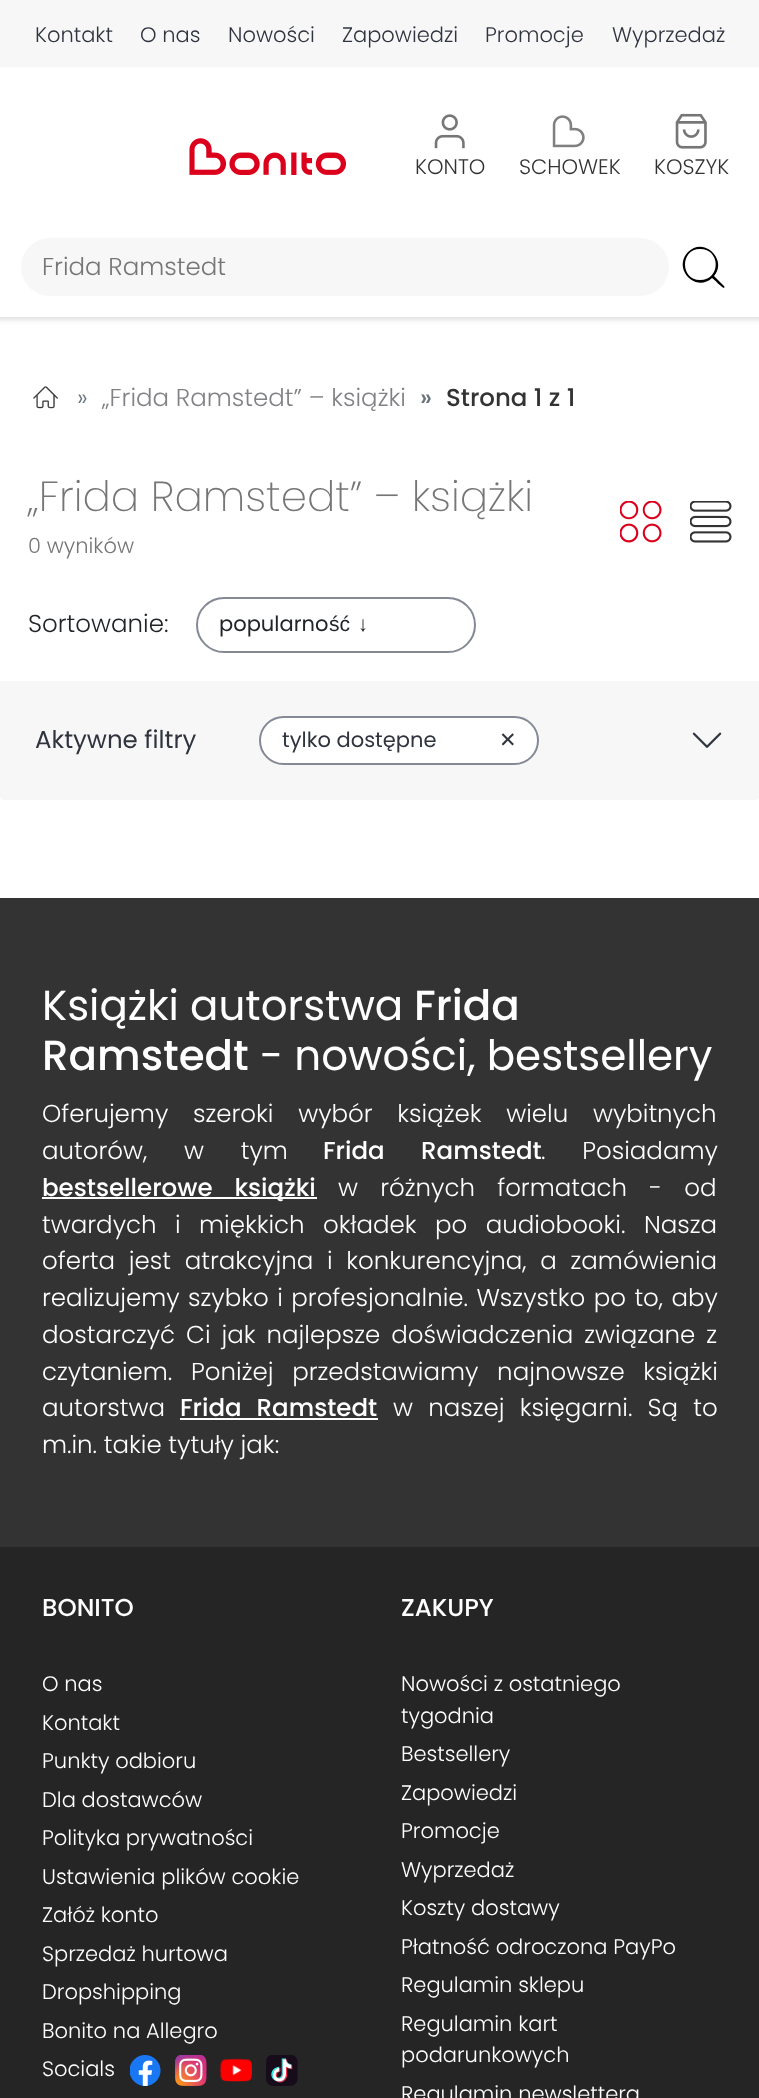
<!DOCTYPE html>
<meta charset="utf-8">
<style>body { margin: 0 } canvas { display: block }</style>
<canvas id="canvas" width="759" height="2098"></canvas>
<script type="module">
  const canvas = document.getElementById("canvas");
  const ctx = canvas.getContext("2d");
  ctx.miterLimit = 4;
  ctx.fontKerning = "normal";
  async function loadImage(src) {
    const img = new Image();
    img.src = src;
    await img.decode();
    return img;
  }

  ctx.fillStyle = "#ffffff";
  ctx.fillRect(0, 0, 759, 2098);
  ctx.fillStyle = "#e0e0e0";
  ctx.filter = "blur(2.5px)";
  ctx.beginPath();
  ctx.rect(-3, -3, 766, 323);
  ctx.fill();
  ctx.filter = "none";
  ctx.fillStyle = "#ffffff";
  ctx.fillRect(0, 67, 759, 250);
  ctx.fillStyle = "#f7f7f7";
  ctx.fillRect(0, 0, 759, 67);
  ctx.font = "300 21px Poppins";
  ctx.fillStyle = "#30343f";
  ctx.fillText("Kontakt", 35, 42);
  ctx.fillText("O nas", 140, 42);
  ctx.fillText("Nowości", 228, 42);
  ctx.fillText("Zapowiedzi", 342, 42);
  ctx.fillText("Promocje", 485, 42);
  ctx.fillText("Wyprzedaż", 612, 42);
  ctx.drawImage(await loadImage("img1.png"), 189, 138, 158, 37);
  ctx.drawImage(await loadImage("img2.png"), 434, 114, 31, 35);
  ctx.fillStyle = "#333333";
  ctx.fillText("KONTO", 415, 174);
  ctx.drawImage(await loadImage("img3.png"), 552, 115, 33, 33);
  ctx.fillText("SCHOWEK", 519, 174);
  ctx.drawImage(await loadImage("img4.png"), 675, 113, 32, 36);
  ctx.fillText("KOSZYK", 654, 174);
  ctx.fillStyle = "#f7f7f7";
  ctx.beginPath();
  ctx.roundRect(21, 238, 648, 58, 29);
  ctx.fill();
  ctx.font = "300 24.5px Poppins";
  ctx.fillStyle = "#767676";
  ctx.fillText("Frida Ramstedt", 42, 275);
  ctx.fillStyle = "#000000";
  ctx.beginPath();
  ctx.moveTo(724, 286);
  ctx.lineTo(714, 276);
  ctx.bezierCurveTo(728, 260, 704, 236, 688, 252);
  ctx.bezierCurveTo(672, 269, 696, 293, 712, 278);
  ctx.bezierCurveTo(714, 279, 722, 288, 724, 288);
  ctx.bezierCurveTo(724, 288, 725, 287, 724, 286);
  ctx.closePath();
  ctx.moveTo(700, 280);
  ctx.bezierCurveTo(680, 280, 680, 249, 700, 249);
  ctx.bezierCurveTo(721, 249, 721, 280, 700, 280);
  ctx.closePath();
  ctx.fill();
  ctx.drawImage(await loadImage("img5.png"), 33, 386, 25, 23);
  ctx.fillStyle = "#6c757d";
  ctx.fillText("»", 77, 406);
  ctx.fillStyle = "#818285";
  ctx.fillText("„Frida Ramstedt” – książki", 102, 406);
  ctx.font = "500 24.5px Poppins";
  ctx.fillStyle = "#6c757d";
  ctx.fillText("»", 420, 406);
  ctx.fillStyle = "#333333";
  ctx.fillText("Strona 1 z 1", 446, 406);
  ctx.font = "200 42px Poppins";
  ctx.fillStyle = "#767676";
  ctx.fillText("„Frida Ramstedt” – książki", 28, 511);
  ctx.font = "300 21px Poppins";
  ctx.fillText("0 wyników", 28, 553);
  ctx.drawImage(await loadImage("img6.png"), 620, 501, 42, 42);
  ctx.drawImage(await loadImage("img7.png"), 690, 501, 42, 42);
  ctx.font = "300 24.5px Poppins";
  ctx.fillStyle = "#212529";
  ctx.fillText("Sortowanie:", 28, 632);
  ctx.beginPath();
  ctx.roundRect(197, 598, 278, 54, 27);
  ctx.strokeStyle = "#858996";
  ctx.lineWidth = 2;
  ctx.stroke();
  ctx.font = "21px Poppins";
  ctx.fillText("popularno", 219, 631);
  ctx.wordSpacing = "2px";
  ctx.font = "21px Liberation Sans";
  ctx.fillText("ść ↓", 329, 631);
  ctx.fillStyle = "#f7f7f7";
  ctx.beginPath();
  ctx.moveTo(0, 681);
  ctx.lineTo(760, 681);
  ctx.lineTo(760, 795);
  ctx.bezierCurveTo(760, 798, 758, 800, 755, 800);
  ctx.lineTo(5, 800);
  ctx.bezierCurveTo(2, 800, 0, 798, 0, 795);
  ctx.closePath();
  ctx.fill();
  ctx.wordSpacing = "0px";
  ctx.font = "24.5px Poppins";
  ctx.fillStyle = "#30343f";
  ctx.fillText("Aktywne filtry", 35, 748);
  ctx.fillStyle = "#ffffff";
  ctx.beginPath();
  ctx.roundRect(260, 717, 278, 47, 23.5);
  ctx.fill();
  ctx.stroke();
  ctx.font = "21px Poppins";
  ctx.fillStyle = "#30343f";
  ctx.fillText("tylko dostępne", 282, 747);
  ctx.font = "21px DejaVu Sans";
  ctx.fillText("✕", 499, 747);
  ctx.drawImage(await loadImage("img8.png"), 692, 732, 30, 16);
  ctx.fillStyle = "#333333";
  ctx.fillRect(0, 898, 759, 649);
  ctx.font = "42px Poppins";
  ctx.fillStyle = "#ffffff";
  ctx.fillText("Książki autorstwa", 42, 1020);
  ctx.font = "500 42px Poppins";
  ctx.fillText("Frida", 414, 1020);
  ctx.fillText("Ramstedt", 42, 1070);
  ctx.font = "42px Poppins";
  ctx.fillText("- nowości, bestsellery", 260, 1070);
  ctx.wordSpacing = "18px";
  ctx.font = "300 24.5px Poppins";
  ctx.fillText("Oferujemy szeroki wybór książek wielu wybitnych", 42, 1122);
  ctx.wordSpacing = "30px";
  ctx.fillText("autorów, w tym", 42, 1159);
  ctx.font = "500 24.5px Poppins";
  ctx.fillText("Frida Ramstedt", 323, 1159);
  ctx.font = "300 24.5px Poppins";
  ctx.fillText(". Posiadamy", 541, 1159);
  ctx.fillRect(42, 1197, 275, 2);
  ctx.wordSpacing = "15.5px";
  ctx.font = "500 24.5px Poppins";
  ctx.fillText("bestsellerowe książki", 42, 1196);
  ctx.font = "300 24.5px Poppins";
  ctx.fillText("w różnych formatach - od", 338, 1196);
  ctx.wordSpacing = "11.75px";
  ctx.fillText("twardych i miękkich okładek po audiobooki. Nasza", 42, 1233);
  ctx.wordSpacing = "7px";
  ctx.fillText("oferta jest atrakcyjna i konkurencyjna, a zamówienia", 42, 1269);
  ctx.wordSpacing = "1.75px";
  ctx.fillText("realizujemy szybko i profesjonalnie. Wszystko po to, aby", 42, 1306);
  ctx.wordSpacing = "4.25px";
  ctx.fillText("dostarczyć Ci jak najlepsze doświadczenia związane z", 42, 1343);
  ctx.wordSpacing = "12px";
  ctx.fillText("czytaniem. Poniżej przedstawiamy najnowsze książki", 42, 1380);
  ctx.wordSpacing = "0px";
  ctx.fillText("autorstwa", 42, 1416);
  ctx.wordSpacing = "8.5px";
  ctx.font = "500 24.5px Poppins";
  ctx.fillText("Frida Ramstedt", 180, 1416);
  ctx.fillRect(180, 1418, 198, 2);
  ctx.font = "300 24.5px Poppins";
  ctx.fillText("w naszej księgarni. Są to", 393, 1416);
  ctx.wordSpacing = "0px";
  ctx.fillText("m.in. takie tytuły jak:", 42, 1453);
  ctx.fillStyle = "#252525";
  ctx.fillRect(0, 1547, 759, 551);
  ctx.font = "500 24.5px Poppins";
  ctx.fillStyle = "#ffffff";
  ctx.fillText("BONITO", 42, 1616);
  ctx.font = "300 21px Poppins";
  ctx.fillText("O nas", 42, 1691);
  ctx.fillText("Kontakt", 42, 1730);
  ctx.fillText("Punkty odbioru", 42, 1768);
  ctx.fillText("Dla dostawców", 42, 1807);
  ctx.fillText("Polityka prywatności", 42, 1845);
  ctx.fillText("Ustawienia plików cookie", 42, 1884);
  ctx.fillText("Załóż konto", 42, 1922);
  ctx.fillText("Sprzedaż hurtowa", 42, 1961);
  ctx.fillText("Dropshipping", 42, 1999);
  ctx.fillText("Bonito na Allegro", 42, 2038);
  ctx.fillText("Socials", 42, 2076);
  ctx.drawImage(await loadImage("img9.png"), 130, 2055, 31, 31);
  ctx.drawImage(await loadImage("img10.png"), 175, 2055, 32, 31);
  ctx.drawImage(await loadImage("img11.png"), 220, 2058, 32, 24);
  ctx.drawImage(await loadImage("img12.png"), 266, 2055, 32, 31);
  ctx.font = "500 24.5px Poppins";
  ctx.fillText("ZAKUPY", 401, 1616);
  ctx.font = "300 21px Poppins";
  ctx.fillText("Nowości z ostatniego", 401, 1691);
  ctx.fillText("tygodnia", 401, 1723);
  ctx.fillText("Bestsellery", 401, 1761);
  ctx.fillText("Zapowiedzi", 401, 1800);
  ctx.fillText("Promocje", 401, 1838);
  ctx.fillText("Wyprzedaż", 401, 1877);
  ctx.fillText("Koszty dostawy", 401, 1915);
  ctx.fillText("Płatność odroczona PayPo", 401, 1954);
  ctx.fillText("Regulamin sklepu", 401, 1992);
  ctx.fillText("Regulamin kart", 401, 2031);
  ctx.fillText("podarunkowych", 401, 2062);
  ctx.fillText("Regulamin newslettera", 401, 2101);
</script>
